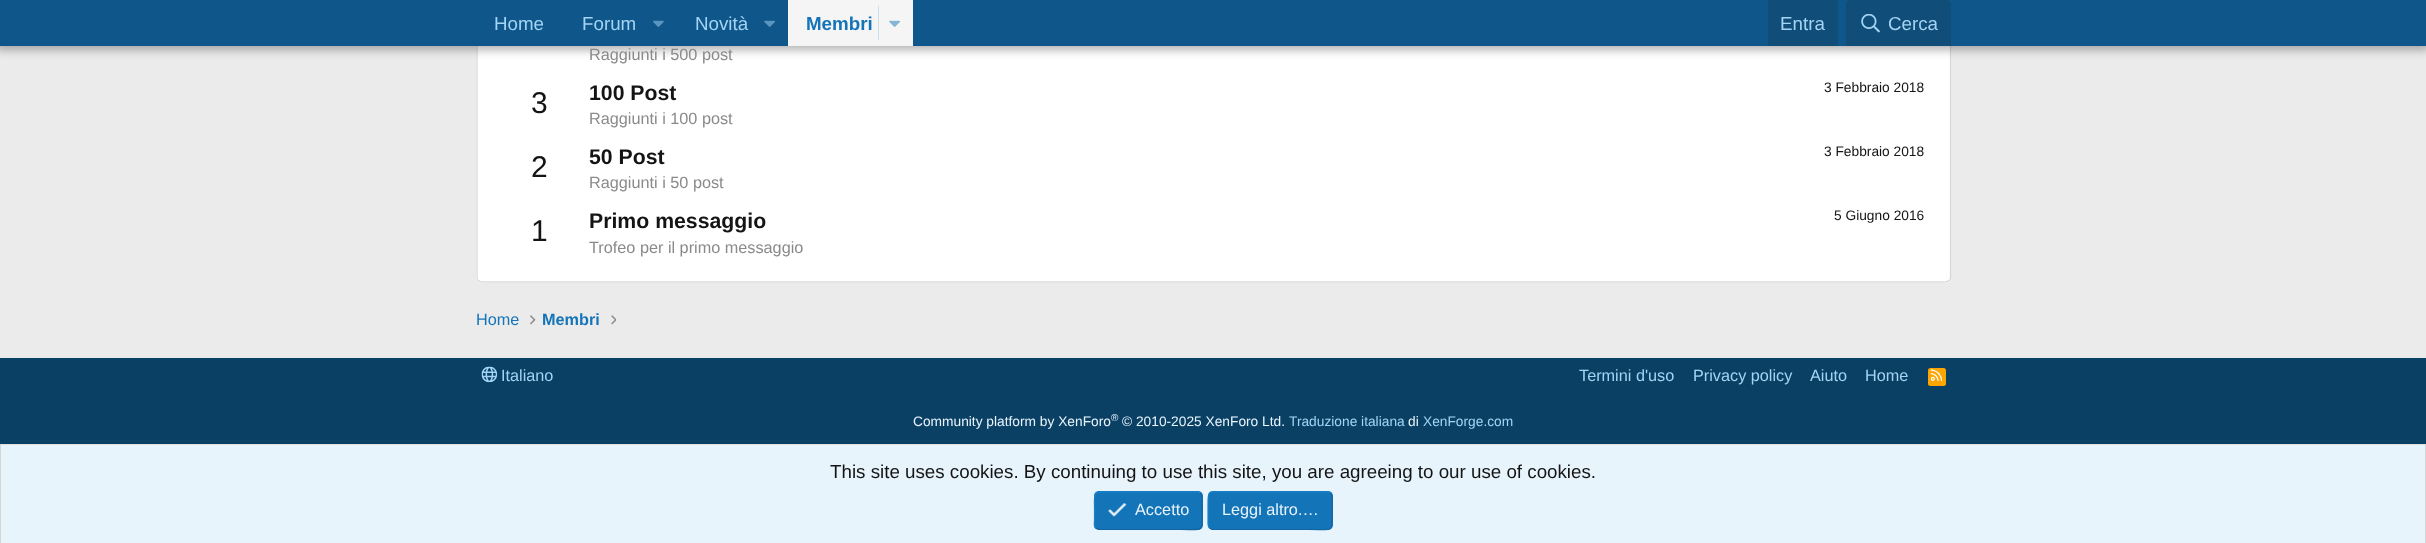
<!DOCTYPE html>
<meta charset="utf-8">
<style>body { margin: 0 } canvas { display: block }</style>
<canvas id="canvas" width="2426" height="543"></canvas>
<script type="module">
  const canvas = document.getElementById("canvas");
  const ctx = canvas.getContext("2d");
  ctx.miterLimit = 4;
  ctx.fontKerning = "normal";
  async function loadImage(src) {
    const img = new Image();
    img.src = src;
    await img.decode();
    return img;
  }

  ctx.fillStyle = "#ebebeb";
  ctx.fillRect(0, 0, 2426, 543);
  ctx.fillStyle = "#ffffff";
  ctx.beginPath();
  ctx.roundRect(476, -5, 1475, 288, 5);
  ctx.fill();
  ctx.beginPath();
  ctx.moveTo(1949.5, -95.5);
  ctx.bezierCurveTo(1950, -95, 1950.5, -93.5, 1950.5, -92.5);
  ctx.lineTo(1950.5, 277.5);
  ctx.bezierCurveTo(1950.5, 278.5, 1950, 280, 1949.5, 280.5);
  ctx.strokeStyle = "#d6d6d6";
  ctx.lineWidth = 1.2;
  ctx.stroke();
  ctx.beginPath();
  ctx.moveTo(1949.5, 280.5);
  ctx.lineTo(1946, 282);
  ctx.lineTo(481, 282);
  ctx.lineTo(478, 280.5);
  ctx.strokeStyle = "#cccccc";
  ctx.stroke();
  ctx.beginPath();
  ctx.moveTo(478, 280.5);
  ctx.bezierCurveTo(477.5, 280, 477, 278.5, 477, 277.5);
  ctx.lineTo(477, -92.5);
  ctx.bezierCurveTo(477, -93.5, 477.5, -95, 478, -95.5);
  ctx.strokeStyle = "#d6d6d6";
  ctx.stroke();
  ctx.fillStyle = "rgba(0, 0, 0, 0.3)";
  ctx.filter = "blur(5px)";
  ctx.beginPath();
  ctx.rect(-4, -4, 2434, 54);
  ctx.fill();
  ctx.filter = "none";
  ctx.fillStyle = "#0f578a";
  ctx.fillRect(0, 0, 2426, 46);
  ctx.font = "18.75px Liberation Sans";
  ctx.fillStyle = "#a3d4f5";
  ctx.fillText("Home", 494, 30);
  ctx.fillText("Forum", 582, 30);
  ctx.drawImage(await loadImage("img1.png"), 653, 20, 11, 7);
  ctx.fillText("Novità", 695, 30);
  ctx.drawImage(await loadImage("img2.png"), 764, 20, 11, 7);
  ctx.fillStyle = "#f5f5f5";
  ctx.fillRect(788, 0, 125, 46);
  ctx.font = "bold 18.75px Liberation Sans";
  ctx.fillStyle = "#1474b8";
  ctx.fillText("Membri", 806, 30);
  ctx.fillStyle = "#cedfeb";
  ctx.fillRect(878, 6, 1, 34);
  ctx.drawImage(await loadImage("img3.png"), 889, 20, 11, 7);
  ctx.fillStyle = "#104d78";
  ctx.fillRect(1768, 0, 70, 46);
  ctx.font = "18.75px Liberation Sans";
  ctx.fillStyle = "#a3d4f5";
  ctx.fillText("Entra", 1780, 30);
  ctx.fillStyle = "#104d78";
  ctx.beginPath();
  ctx.roundRect(1846, 0, 105, 46, [5, 5, 0, 0]);
  ctx.fill();
  ctx.drawImage(await loadImage("img4.png"), 1861, 14, 19, 19);
  ctx.fillStyle = "#a3d4f5";
  ctx.fillText("Cerca", 1888, 30);
  ctx.font = "16.25px Liberation Sans";
  ctx.fillStyle = "#8a8a8a";
  ctx.fillText("Raggiunti i 500 post", 589, 60);
  ctx.font = "30px Liberation Sans";
  ctx.fillStyle = "#141414";
  ctx.fillText("3", 531, 113);
  ctx.font = "bold 21.25px Liberation Sans";
  ctx.fillText("100 Post", 589, 100);
  ctx.font = "13.75px Liberation Sans";
  ctx.fillText("3 Febbraio 2018", 1824, 92);
  ctx.font = "16.25px Liberation Sans";
  ctx.fillStyle = "#8a8a8a";
  ctx.fillText("Raggiunti i 100 post", 589, 124);
  ctx.font = "30px Liberation Sans";
  ctx.fillStyle = "#141414";
  ctx.fillText("2", 531, 177);
  ctx.font = "bold 21.25px Liberation Sans";
  ctx.fillText("50 Post", 589, 164);
  ctx.font = "13.75px Liberation Sans";
  ctx.fillText("3 Febbraio 2018", 1824, 156);
  ctx.font = "16.25px Liberation Sans";
  ctx.fillStyle = "#8a8a8a";
  ctx.fillText("Raggiunti i 50 post", 589, 188);
  ctx.font = "30px Liberation Sans";
  ctx.fillStyle = "#141414";
  ctx.fillText("1", 531, 241);
  ctx.font = "bold 21.25px Liberation Sans";
  ctx.fillText("Primo messaggio", 589, 228);
  ctx.font = "13.75px Liberation Sans";
  ctx.fillText("5 Giugno 2016", 1834, 220);
  ctx.font = "16.25px Liberation Sans";
  ctx.fillStyle = "#8a8a8a";
  ctx.fillText("Trofeo per il primo messaggio", 589, 253);
  ctx.fillStyle = "#1474b8";
  ctx.fillText("Home", 476, 325);
  ctx.drawImage(await loadImage("img5.png"), 530, 315, 6, 10);
  ctx.font = "bold 16.25px Liberation Sans";
  ctx.fillText("Membri", 542, 325);
  ctx.drawImage(await loadImage("img6.png"), 611, 315, 5, 10);
  ctx.fillStyle = "#0b4065";
  ctx.fillRect(0, 358, 2426, 86);
  ctx.drawImage(await loadImage("img7.png"), 481, 366, 17, 17);
  ctx.font = "16.25px Liberation Sans";
  ctx.fillStyle = "#a3d4f5";
  ctx.fillText("Italiano", 501, 381);
  ctx.fillText("Termini d'uso", 1579, 381);
  ctx.fillText("Privacy policy", 1693, 381);
  ctx.fillText("Aiuto", 1810, 381);
  ctx.fillText("Home", 1865, 381);
  ctx.fillStyle = "#ffa500";
  ctx.beginPath();
  ctx.roundRect(1928, 368, 18, 18, 2.5);
  ctx.fill();
  ctx.drawImage(await loadImage("img8.png"), 1930, 369, 13, 12);
  ctx.font = "13.75px Liberation Sans";
  ctx.fillStyle = "#e8f4fc";
  ctx.fillText("Community platform by XenForo", 913, 426);
  ctx.font = "10px Liberation Sans";
  ctx.fillText("®", 1111, 421);
  ctx.font = "13.75px Liberation Sans";
  ctx.fillText("© 2010-2025 XenForo Ltd.", 1122, 426);
  ctx.fillStyle = "#a3d4f5";
  ctx.fillText("Traduzione italiana", 1289, 426);
  ctx.fillStyle = "#e8f4fc";
  ctx.fillText("di", 1408, 426);
  ctx.fillStyle = "#a3d4f5";
  ctx.fillText("XenForge.com", 1423, 426);
  ctx.fillStyle = "#e8f4fc";
  ctx.fillRect(1, 445, 2424, 98);
  ctx.fillStyle = "#e0e0e0";
  ctx.fillRect(0, 444, 2426, 1);
  ctx.fillStyle = "#d6d6d6";
  ctx.fillRect(2425, 444, 1, 99);
  ctx.fillRect(0, 444, 1, 99);
  ctx.font = "18.75px Liberation Sans";
  ctx.fillStyle = "#141414";
  ctx.fillText("This site uses cookies. By continuing to use this site, you are agreeing to our use of cookies.", 830, 478);
  ctx.fillStyle = "#1474b8";
  ctx.beginPath();
  ctx.roundRect(1094, 491, 109, 39, 5);
  ctx.fill();
  ctx.beginPath();
  ctx.moveTo(1200.5, 493);
  ctx.bezierCurveTo(1202.5, 495, 1202, 498.5, 1202, 501);
  ctx.lineTo(1202, 510.5);
  ctx.bezierCurveTo(1202, 533, 1205, 529.5, 1181, 529.5);
  ctx.lineTo(1099, 529.5);
  ctx.lineTo(1095.5, 528);
  ctx.strokeStyle = "#1265a1";
  ctx.stroke();
  ctx.beginPath();
  ctx.moveTo(1095.5, 528);
  ctx.bezierCurveTo(1093.5, 526, 1094.5, 522.5, 1094.5, 520);
  ctx.lineTo(1094.5, 510.5);
  ctx.bezierCurveTo(1094.5, 488.5, 1091.5, 492, 1115, 492);
  ctx.lineTo(1197.5, 492);
  ctx.lineTo(1200.5, 493);
  ctx.strokeStyle = "#1782cf";
  ctx.stroke();
  ctx.drawImage(await loadImage("img9.png"), 1108, 503, 19, 14);
  ctx.font = "16.25px Liberation Sans";
  ctx.fillStyle = "#e8f4fc";
  ctx.fillText("Accetto", 1135, 515);
  ctx.fillStyle = "#1474b8";
  ctx.beginPath();
  ctx.roundRect(1208, 491, 125, 39, 5);
  ctx.fill();
  ctx.beginPath();
  ctx.moveTo(1330.5, 493);
  ctx.bezierCurveTo(1332.5, 495, 1332, 498.5, 1332, 501);
  ctx.lineTo(1332, 510.5);
  ctx.bezierCurveTo(1332, 534, 1334.5, 529.5, 1308.5, 529.5);
  ctx.lineTo(1212.5, 529.5);
  ctx.lineTo(1209.5, 528);
  ctx.strokeStyle = "#1265a1";
  ctx.stroke();
  ctx.beginPath();
  ctx.moveTo(1209.5, 528);
  ctx.bezierCurveTo(1207.5, 526, 1208, 522.5, 1208, 520);
  ctx.lineTo(1208, 510.5);
  ctx.bezierCurveTo(1208, 487.5, 1205.5, 492, 1231.5, 492);
  ctx.lineTo(1327.5, 492);
  ctx.lineTo(1330.5, 493);
  ctx.strokeStyle = "#1782cf";
  ctx.stroke();
  ctx.fillStyle = "#e8f4fc";
  ctx.fillText("Leggi altro.…", 1222, 515);
</script>
